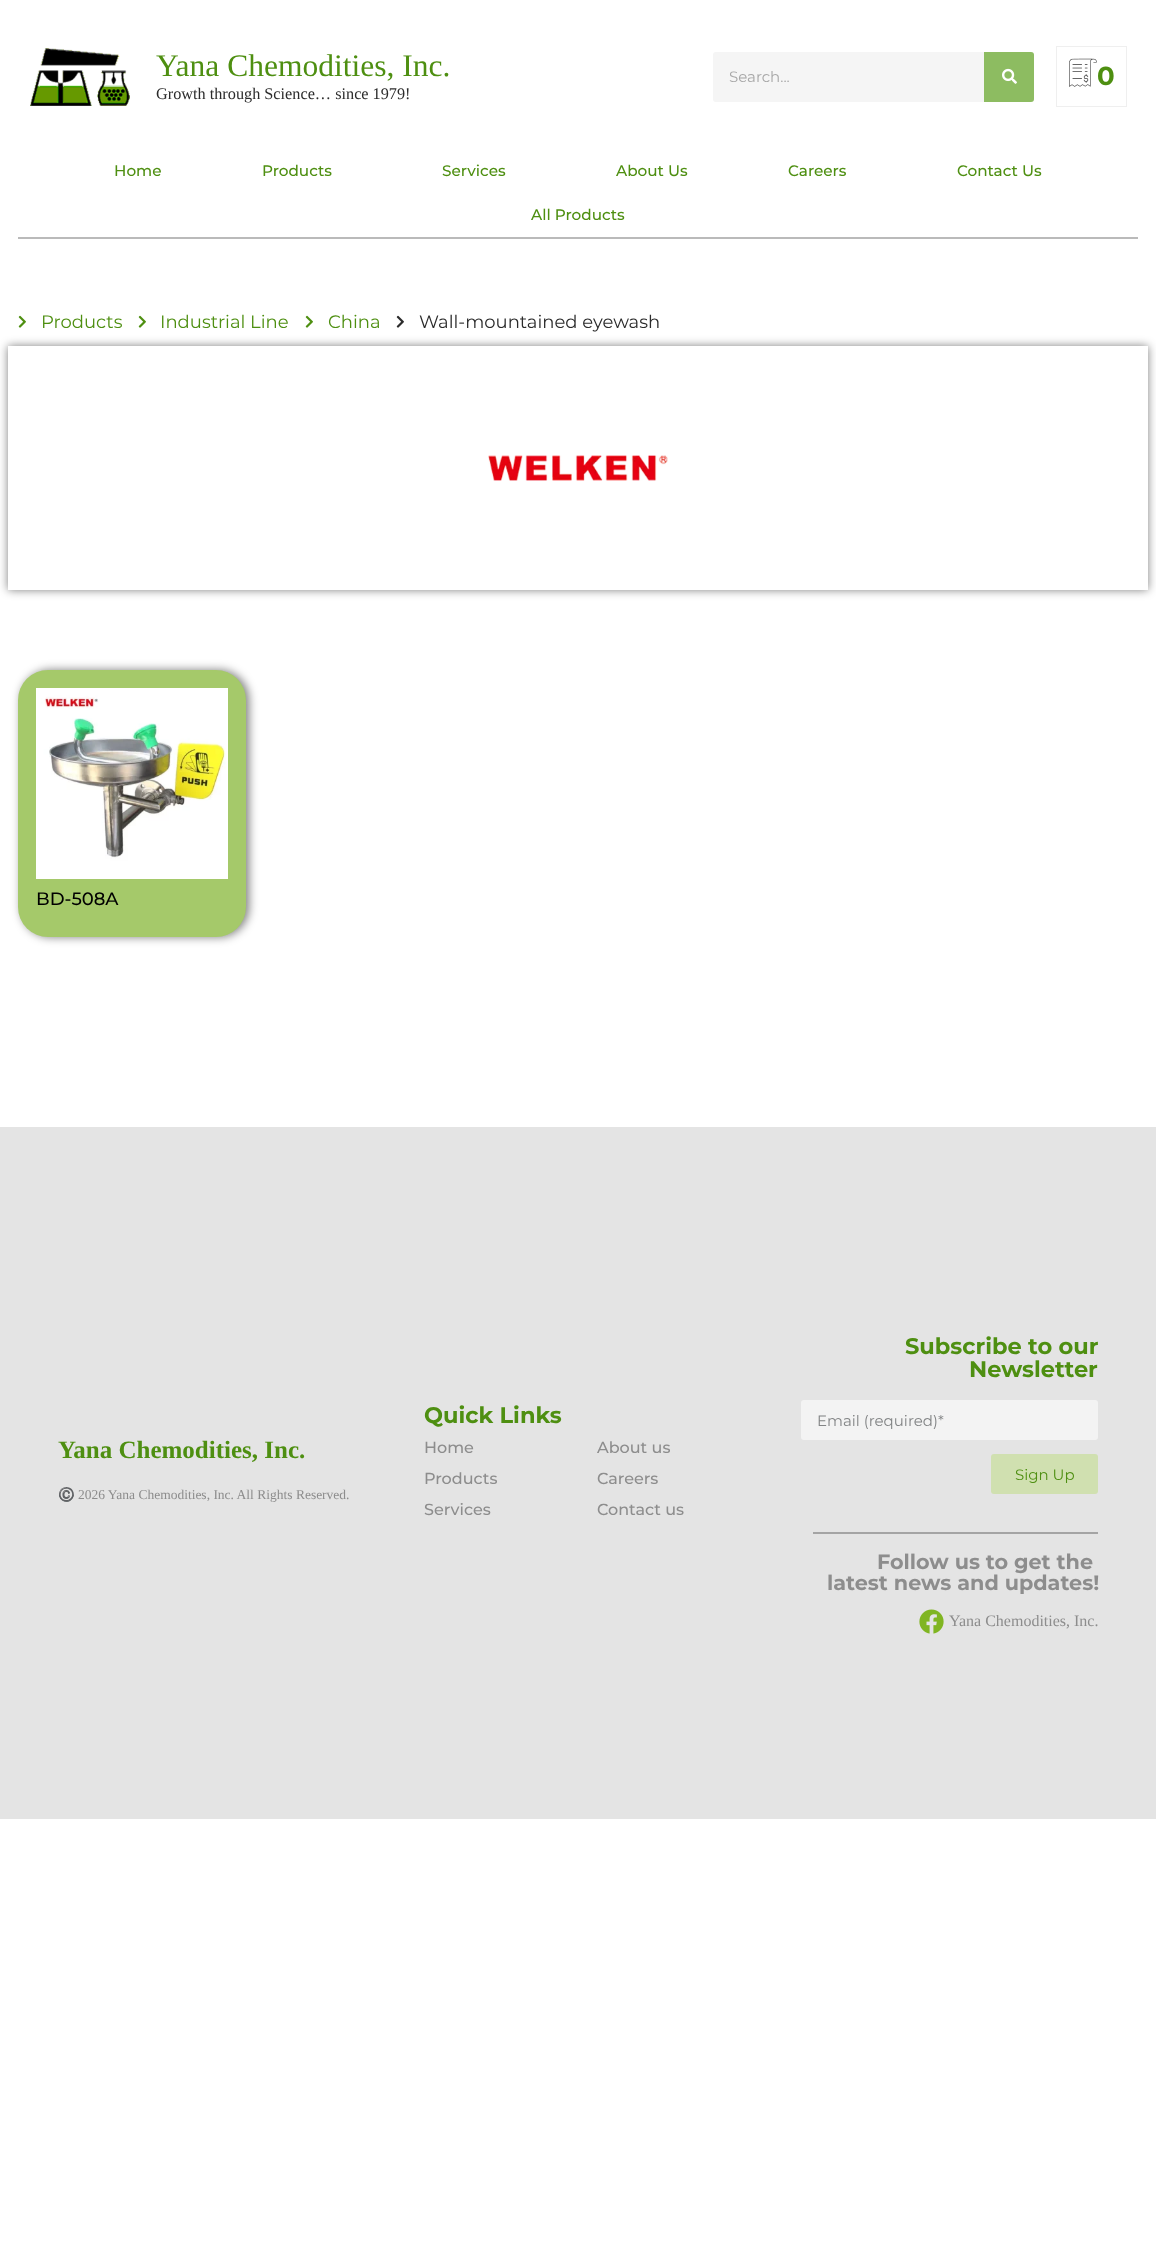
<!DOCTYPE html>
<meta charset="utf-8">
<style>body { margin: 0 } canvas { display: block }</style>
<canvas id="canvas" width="1156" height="2241"></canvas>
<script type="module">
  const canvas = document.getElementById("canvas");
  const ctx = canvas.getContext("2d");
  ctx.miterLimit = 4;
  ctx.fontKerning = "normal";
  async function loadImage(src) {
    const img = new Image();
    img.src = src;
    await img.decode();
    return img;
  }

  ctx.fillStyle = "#ffffff";
  ctx.fillRect(0, 0, 1156, 2241);
  ctx.drawImage(await loadImage("img1.png"), 30, 48, 100, 58);
  ctx.font = "31.5px Liberation Serif";
  ctx.fillStyle = "#4e8f11";
  ctx.fillText("Yana Chemodities, Inc.", 156, 76);
  ctx.font = "16.25px Liberation Serif";
  ctx.fillStyle = "#2b2b2b";
  ctx.fillText("Growth through Science… since 1979!", 156, 99);
  ctx.fillStyle = "#f5f5f5";
  ctx.beginPath();
  ctx.roundRect(713, 52, 321, 50, 3);
  ctx.fill();
  ctx.font = "15px Montserrat";
  ctx.fillStyle = "#a7a7a7";
  ctx.fillText("Search...", 729, 82);
  ctx.fillStyle = "#8dbc61";
  ctx.beginPath();
  ctx.roundRect(984, 52, 50, 50, [0, 3, 3, 0]);
  ctx.fill();
  ctx.drawImage(await loadImage("img2.png"), 1002, 68, 15, 16);
  ctx.strokeStyle = "#efefef";
  ctx.strokeRect(1056.5, 46.5, 70, 60);
  ctx.drawImage(await loadImage("img3.png"), 1069, 58, 28, 29);
  ctx.font = "bold 26px Montserrat";
  ctx.fillStyle = "#4e8f11";
  ctx.fillText("0", 1097, 85);
  ctx.fillStyle = "#bababa";
  ctx.fillRect(18, 237, 1120, 2);
  ctx.font = "500 15.25px Montserrat";
  ctx.fillStyle = "#4e8f11";
  ctx.fillText("Home", 114, 176);
  ctx.fillText("Products", 262, 176);
  ctx.fillText("Services", 442, 176);
  ctx.fillText("About Us", 616, 176);
  ctx.fillText("Careers", 788, 176);
  ctx.fillText("Contact Us", 957, 176);
  ctx.fillText("All Products", 531, 220);
  ctx.drawImage(await loadImage("img4.png"), 18, 315, 8, 13);
  ctx.font = "18px Montserrat";
  ctx.fillText("Products", 41, 328);
  ctx.drawImage(await loadImage("img4.png"), 138, 315, 8, 13);
  ctx.fillText("Industrial Line", 160, 328);
  ctx.drawImage(await loadImage("img4.png"), 305, 315, 8, 13);
  ctx.fillText("China", 328, 328);
  ctx.drawImage(await loadImage("img5.png"), 396, 315, 8, 13);
  ctx.fillStyle = "#2b2b2b";
  ctx.fillText("Wall-mountained eyewash", 419, 328);
  ctx.save();
  ctx.beginPath();
  ctx.moveTo(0, 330);
  ctx.lineTo(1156, 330);
  ctx.lineTo(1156, 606);
  ctx.lineTo(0, 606);
  ctx.closePath();
  ctx.moveTo(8, 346);
  ctx.lineTo(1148, 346);
  ctx.lineTo(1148, 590);
  ctx.lineTo(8, 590);
  ctx.closePath();
  ctx.clip("evenodd");
  ctx.fillStyle = "rgba(0, 0, 0, 0.5)";
  ctx.filter = "blur(5px)";
  ctx.beginPath();
  ctx.rect(8, 346, 1140, 244);
  ctx.fill();
  ctx.filter = "none";
  ctx.restore();
  ctx.drawImage(await loadImage("img6.png"), 488, 455, 180, 26);
  ctx.fillStyle = "rgba(0, 0, 0, 0.5)";
  ctx.filter = "blur(5px)";
  ctx.beginPath();
  ctx.roundRect(21, 670, 228, 267, 30);
  ctx.fill();
  ctx.filter = "none";
  ctx.fillStyle = "#a5c96a";
  ctx.beginPath();
  ctx.roundRect(18, 670, 228, 267, 30);
  ctx.fill();
  ctx.drawImage(await loadImage("img7.png"), 36, 688, 192, 191);
  ctx.font = "500 18px Montserrat";
  ctx.fillStyle = "#000000";
  ctx.fillText("BD-508A", 36, 905);
  ctx.fillStyle = "#e4e4e4";
  ctx.fillRect(0, 1127, 1156, 692);
  ctx.font = "bold 25px Liberation Serif";
  ctx.fillStyle = "#4e8f11";
  ctx.fillText("Yana Chemodities, Inc.", 58, 1458);
  ctx.font = "13.5px Noto Color Emoji";
  ctx.fillStyle = "#8d8d8d";
  ctx.fillText("©️", 58, 1499);
  ctx.font = "13.5px Liberation Serif";
  ctx.fillText("2026 Yana Chemodities, Inc. All Rights Reserved.", 78, 1499);
  ctx.font = "bold 22.5px Montserrat";
  ctx.fillStyle = "#4e8f11";
  ctx.fillText("Quick Links", 424, 1423);
  ctx.font = "500 16px Montserrat";
  ctx.fillStyle = "#8d8d8d";
  ctx.fillText("Home", 424, 1453);
  ctx.fillText("Products", 424, 1484);
  ctx.fillText("Services", 424, 1515);
  ctx.fillText("About us", 597, 1453);
  ctx.fillText("Careers", 597, 1484);
  ctx.fillText("Contact us", 597, 1515);
  ctx.font = "bold 22.5px Montserrat";
  ctx.fillStyle = "#4e8f11";
  ctx.fillText("Subscribe to our", 905, 1354);
  ctx.fillText("Newsletter", 969, 1377);
  ctx.fillStyle = "#f3f3f3";
  ctx.beginPath();
  ctx.roundRect(801, 1400, 297, 40, 3);
  ctx.fill();
  ctx.font = "15px Montserrat";
  ctx.fillStyle = "#828485";
  ctx.fillText("Email (required)*", 817, 1426);
  ctx.fillStyle = "#d0e0b0";
  ctx.beginPath();
  ctx.roundRect(991, 1454, 107, 40, 3);
  ctx.fill();
  ctx.fillStyle = "#4e8f11";
  ctx.fillText("Sign Up", 1015, 1480);
  ctx.fillStyle = "#a4a4a4";
  ctx.fillRect(813, 1532, 285, 2);
  ctx.font = "bold 20.75px Montserrat";
  ctx.fillStyle = "#8d8d8d";
  ctx.fillText("Follow us to get the", 877, 1569);
  ctx.fillText("latest news and updates!", 827, 1590);
  ctx.drawImage(await loadImage("img8.png"), 919, 1609, 25, 25);
  ctx.font = "16px Liberation Serif";
  ctx.fillText("Yana Chemodities, Inc.", 949, 1626);
</script>
